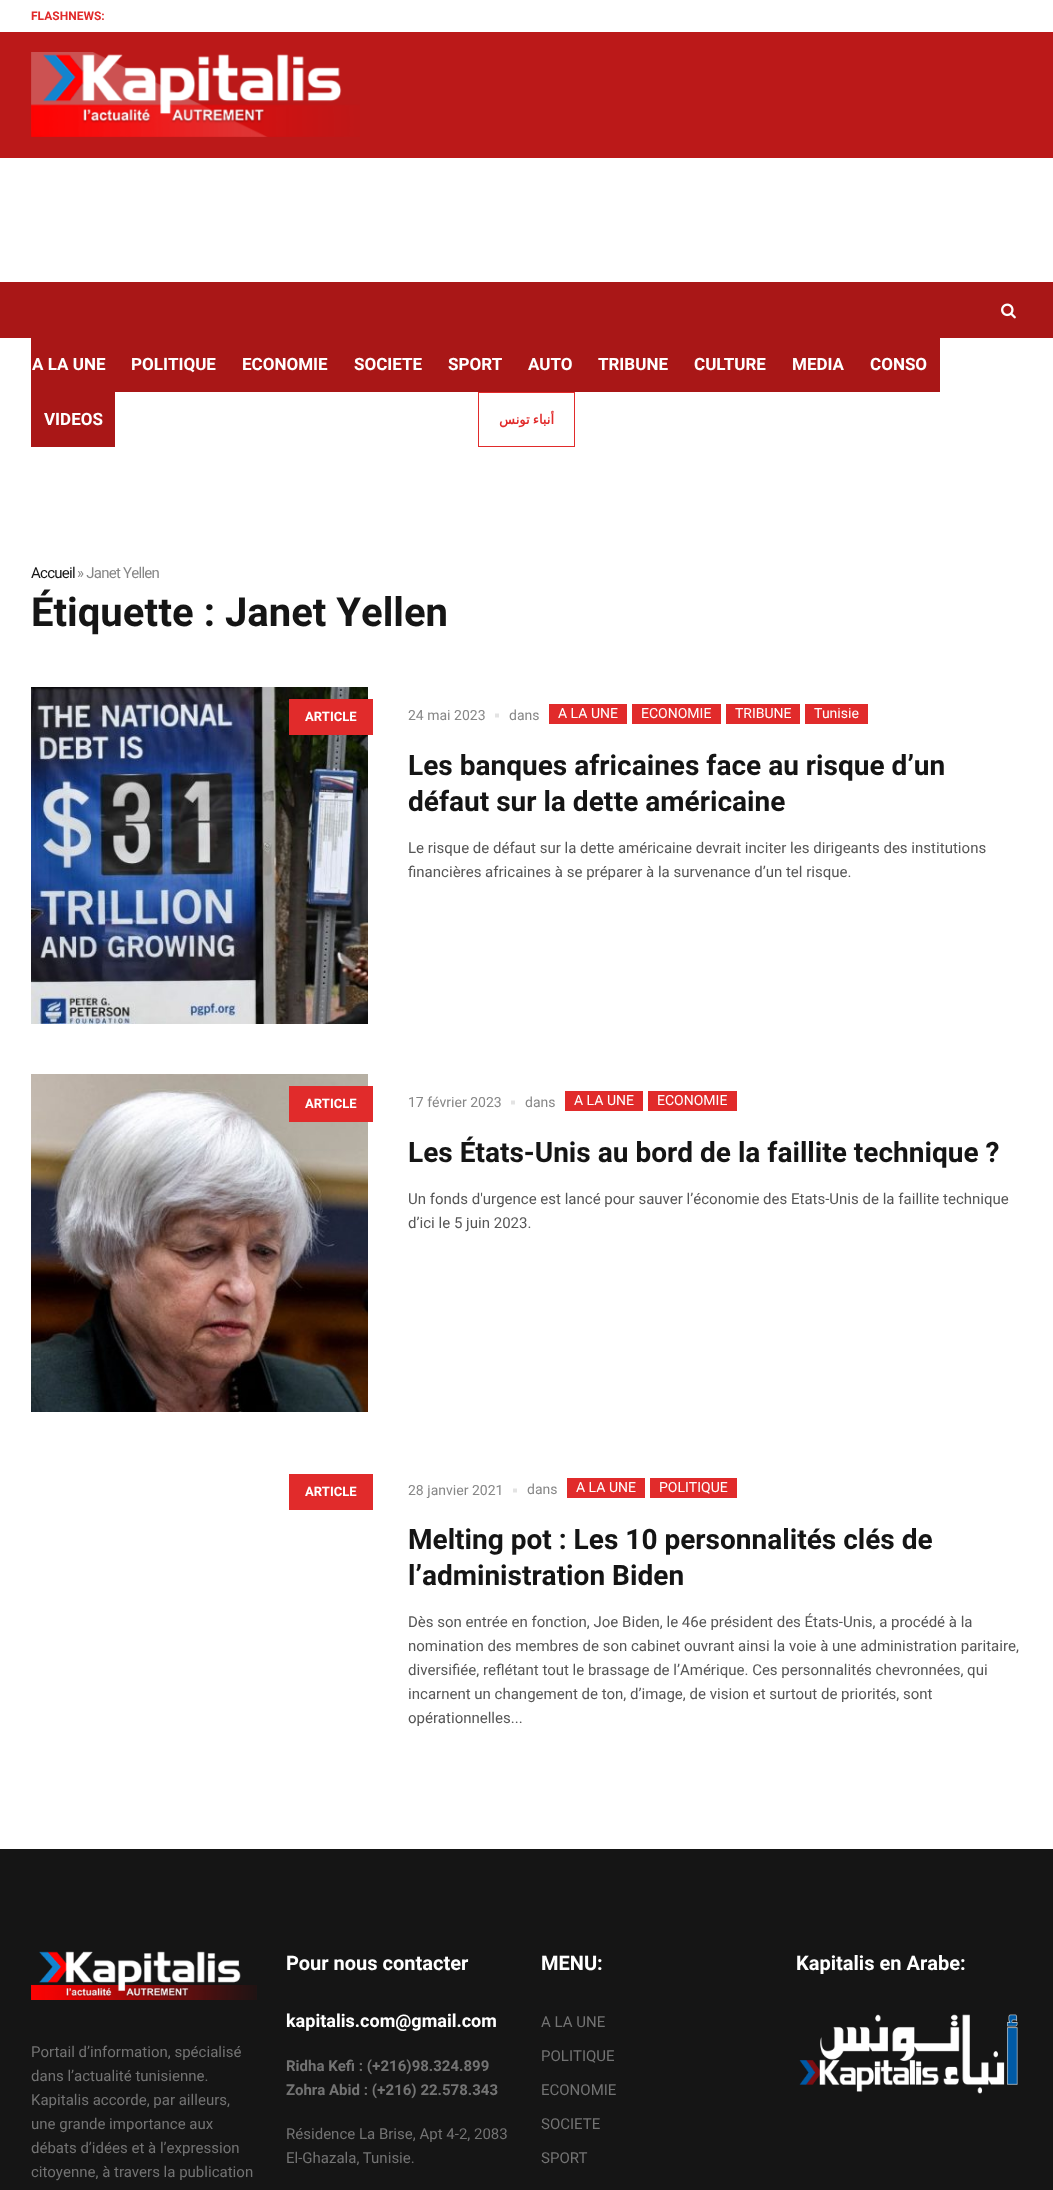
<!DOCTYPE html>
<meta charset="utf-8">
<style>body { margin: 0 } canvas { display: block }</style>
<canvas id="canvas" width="1053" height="2190"></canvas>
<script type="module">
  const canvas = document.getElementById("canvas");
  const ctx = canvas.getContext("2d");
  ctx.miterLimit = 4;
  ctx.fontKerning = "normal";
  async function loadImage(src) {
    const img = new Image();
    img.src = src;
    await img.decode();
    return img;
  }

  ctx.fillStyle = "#ffffff";
  ctx.fillRect(0, 0, 1053, 2190);
  ctx.font = "bold 12px Heebo";
  ctx.fillStyle = "#e12b2b";
  ctx.fillText("FLASHNEWS:", 31, 20);
  ctx.fillStyle = "#bb1919";
  ctx.fillRect(0, 32, 1053, 126);
  ctx.drawImage(await loadImage("img1.png"), 31, 52, 329, 85);
  ctx.fillStyle = "#a91717";
  ctx.fillRect(0, 282, 1053, 56);
  ctx.drawImage(await loadImage("img2.png"), 1001, 303, 15, 16);
  ctx.fillRect(31, 338, 909, 54);
  ctx.font = "bold 17px Heebo";
  ctx.fillStyle = "#ffffff";
  ctx.fillText("A LA UNE", 32, 370);
  ctx.fillText("POLITIQUE", 131, 370);
  ctx.fillText("ECONOMIE", 242, 370);
  ctx.fillText("SOCIETE", 354, 370);
  ctx.fillText("SPORT", 448, 370);
  ctx.fillText("AUTO", 528, 370);
  ctx.fillText("TRIBUNE", 598, 370);
  ctx.fillText("CULTURE", 694, 370);
  ctx.fillText("MEDIA", 792, 370);
  ctx.fillText("CONSO", 870, 370);
  ctx.fillStyle = "#a91717";
  ctx.fillRect(31, 392, 84, 55);
  ctx.fillStyle = "#ffffff";
  ctx.fillText("VIDEOS", 44, 425);
  ctx.strokeStyle = "#e12b2b";
  ctx.strokeRect(478.5, 392.5, 96, 54);
  ctx.wordSpacing = "-1px";
  ctx.direction = "rtl";
  ctx.font = "bold 13px DejaVu Sans";
  ctx.fillStyle = "#e12b2b";
  ctx.fillText("أنباء تونس", 554, 424);
  ctx.letterSpacing = "-0.75px";
  ctx.wordSpacing = "0px";
  ctx.direction = "ltr";
  ctx.font = "15px Heebo";
  ctx.fillStyle = "#151515";
  ctx.fillText("Accueil", 31, 578);
  ctx.fillStyle = "#878787";
  ctx.fillText("» Janet Yellen", 77, 578);
  ctx.letterSpacing = "0px";
  ctx.font = "bold 40px Heebo";
  ctx.fillStyle = "#151515";
  ctx.fillText("Étiquette : Janet Yellen", 31, 626);
  ctx.drawImage(await loadImage("img3.png"), 31, 687, 337, 337);
  ctx.fillStyle = "#e12b2b";
  ctx.fillRect(289, 699, 84, 36);
  ctx.font = "bold 13px Heebo";
  ctx.fillStyle = "#ffffff";
  ctx.fillText("ARTICLE", 305, 721);
  ctx.font = "14px Heebo";
  ctx.fillStyle = "#878787";
  ctx.fillText("24 mai 2023", 408, 720);
  ctx.fillStyle = "#e3e3e3";
  ctx.beginPath();
  ctx.moveTo(499, 713.5);
  ctx.lineTo(499, 717.5);
  ctx.lineTo(495, 717.5);
  ctx.lineTo(495, 713.5);
  ctx.closePath();
  ctx.fill();
  ctx.fillStyle = "#878787";
  ctx.fillText("dans", 509, 720);
  ctx.fillStyle = "#e12b2b";
  ctx.fillRect(549, 704, 78, 20);
  ctx.fillStyle = "#ffffff";
  ctx.fillText("A LA UNE", 558, 718);
  ctx.fillStyle = "#e12b2b";
  ctx.fillRect(632, 704, 89, 20);
  ctx.fillStyle = "#ffffff";
  ctx.fillText("ECONOMIE", 641, 718);
  ctx.fillStyle = "#e12b2b";
  ctx.fillRect(726, 704, 74, 20);
  ctx.fillStyle = "#ffffff";
  ctx.fillText("TRIBUNE", 735, 718);
  ctx.fillStyle = "#e12b2b";
  ctx.fillRect(805, 704, 63, 20);
  ctx.fillStyle = "#ffffff";
  ctx.fillText("Tunisie", 814, 718);
  ctx.font = "bold 28px Heebo";
  ctx.fillStyle = "#151515";
  ctx.fillText("Les banques africaines face au risque d’un", 408, 775);
  ctx.fillText("défaut sur la dette américaine", 408, 811);
  ctx.font = "15px Heebo";
  ctx.fillStyle = "#565656";
  ctx.fillText("Le risque de défaut sur la dette américaine devrait inciter les dirigeants des institutions", 408, 853);
  ctx.fillText("financières africaines à se préparer à la survenance d’un tel risque.", 408, 877);
  ctx.drawImage(await loadImage("img4.png"), 31, 1074, 337, 338);
  ctx.fillStyle = "#e12b2b";
  ctx.fillRect(289, 1086, 84, 36);
  ctx.font = "bold 13px Heebo";
  ctx.fillStyle = "#ffffff";
  ctx.fillText("ARTICLE", 305, 1108);
  ctx.font = "14px Heebo";
  ctx.fillStyle = "#878787";
  ctx.fillText("17 février 2023", 408, 1107);
  ctx.fillStyle = "#e3e3e3";
  ctx.beginPath();
  ctx.moveTo(515, 1100.5);
  ctx.lineTo(515, 1104.5);
  ctx.lineTo(511, 1104.5);
  ctx.lineTo(511, 1100.5);
  ctx.closePath();
  ctx.fill();
  ctx.fillStyle = "#878787";
  ctx.fillText("dans", 525, 1107);
  ctx.fillStyle = "#e12b2b";
  ctx.fillRect(565, 1091, 78, 20);
  ctx.fillStyle = "#ffffff";
  ctx.fillText("A LA UNE", 574, 1105);
  ctx.fillStyle = "#e12b2b";
  ctx.fillRect(648, 1091, 89, 20);
  ctx.fillStyle = "#ffffff";
  ctx.fillText("ECONOMIE", 657, 1105);
  ctx.font = "bold 28px Heebo";
  ctx.fillStyle = "#151515";
  ctx.fillText("Les États-Unis au bord de la faillite technique ?", 408, 1162);
  ctx.font = "15px Heebo";
  ctx.fillStyle = "#565656";
  ctx.fillText("Un fonds d'urgence est lancé pour sauver l’économie des Etats-Unis de la faillite technique", 408, 1204);
  ctx.fillText("d’ici le 5 juin 2023.", 408, 1228);
  ctx.fillStyle = "#e12b2b";
  ctx.fillRect(289, 1474, 84, 36);
  ctx.font = "bold 13px Heebo";
  ctx.fillStyle = "#ffffff";
  ctx.fillText("ARTICLE", 305, 1496);
  ctx.font = "14px Heebo";
  ctx.fillStyle = "#878787";
  ctx.fillText("28 janvier 2021", 408, 1495);
  ctx.fillStyle = "#e3e3e3";
  ctx.beginPath();
  ctx.moveTo(517, 1488.5);
  ctx.lineTo(517, 1492.5);
  ctx.lineTo(513, 1492.5);
  ctx.lineTo(513, 1488.5);
  ctx.closePath();
  ctx.fill();
  ctx.fillStyle = "#878787";
  ctx.fillText("dans", 527, 1494);
  ctx.fillStyle = "#e12b2b";
  ctx.fillRect(567, 1478, 78, 20);
  ctx.fillStyle = "#ffffff";
  ctx.fillText("A LA UNE", 576, 1492);
  ctx.fillStyle = "#e12b2b";
  ctx.fillRect(650, 1478, 87, 20);
  ctx.fillStyle = "#ffffff";
  ctx.fillText("POLITIQUE", 659, 1492);
  ctx.font = "bold 28px Heebo";
  ctx.fillStyle = "#151515";
  ctx.fillText("Melting pot : Les 10 personnalités clés de", 408, 1549);
  ctx.fillText("l’administration Biden", 408, 1585);
  ctx.font = "15px Heebo";
  ctx.fillStyle = "#565656";
  ctx.fillText("Dès son entrée en fonction, Joe Biden, le 46e président des États-Unis, a procédé à la", 408, 1627);
  ctx.fillText("nomination des membres de son cabinet ouvrant ainsi la voie à une administration paritaire,", 408, 1651);
  ctx.fillText("diversifiée, reflétant tout le brassage de l’Amérique. Ces personnalités chevronnées, qui", 408, 1675);
  ctx.fillText("incarnent un changement de ton, d’image, de vision et surtout de priorités, sont", 408, 1699);
  ctx.fillText("opérationnelles...", 408, 1723);
  ctx.fillStyle = "#151515";
  ctx.fillRect(0, 1849, 1053, 341);
  ctx.font = "bold 20px Heebo";
  ctx.fillStyle = "#ffffff";
  ctx.fillText("Pour nous contacter", 286, 1970);
  ctx.font = "bold 18px Heebo";
  ctx.fillText("kapitalis.com@gmail.com", 286, 2027);
  ctx.font = "bold 15px Heebo";
  ctx.fillStyle = "#737373";
  ctx.fillText("Ridha Kefi : (+216)98.324.899", 286, 2071);
  ctx.fillText("Zohra Abid : (+216) 22.578.343", 286, 2095);
  ctx.font = "15px Heebo";
  ctx.fillText("Résidence La Brise, Apt 4-2, 2083", 286, 2139);
  ctx.fillText("El-Ghazala, Tunisie.", 286, 2163);
  ctx.font = "bold 20px Heebo";
  ctx.fillStyle = "#ffffff";
  ctx.fillText("MENU:", 541, 1970);
  ctx.font = "15px Heebo";
  ctx.fillStyle = "#737373";
  ctx.fillText("A LA UNE", 541, 2027);
  ctx.fillText("POLITIQUE", 541, 2061);
  ctx.fillText("ECONOMIE", 541, 2095);
  ctx.fillText("SOCIETE", 541, 2129);
  ctx.fillText("SPORT", 541, 2163);
  ctx.font = "bold 20px Heebo";
  ctx.fillStyle = "#ffffff";
  ctx.fillText("Kapitalis en Arabe:", 796, 1970);
  ctx.drawImage(await loadImage("img5.png"), 799, 2014, 219, 80);
  ctx.drawImage(await loadImage("img6.png"), 31, 1951, 226, 49);
  ctx.font = "15px Heebo";
  ctx.fillStyle = "#737373";
  ctx.fillText("Portail d’information, spécialisé", 31, 2057);
  ctx.fillText("dans l’actualité tunisienne.", 31, 2081);
  ctx.fillText("Kapitalis accorde, par ailleurs,", 31, 2105);
  ctx.fillText("une grande importance aux", 31, 2129);
  ctx.fillText("débats d’idées et à l’expression", 31, 2153);
  ctx.fillText("citoyenne, à travers la publication", 31, 2177);
</script>
